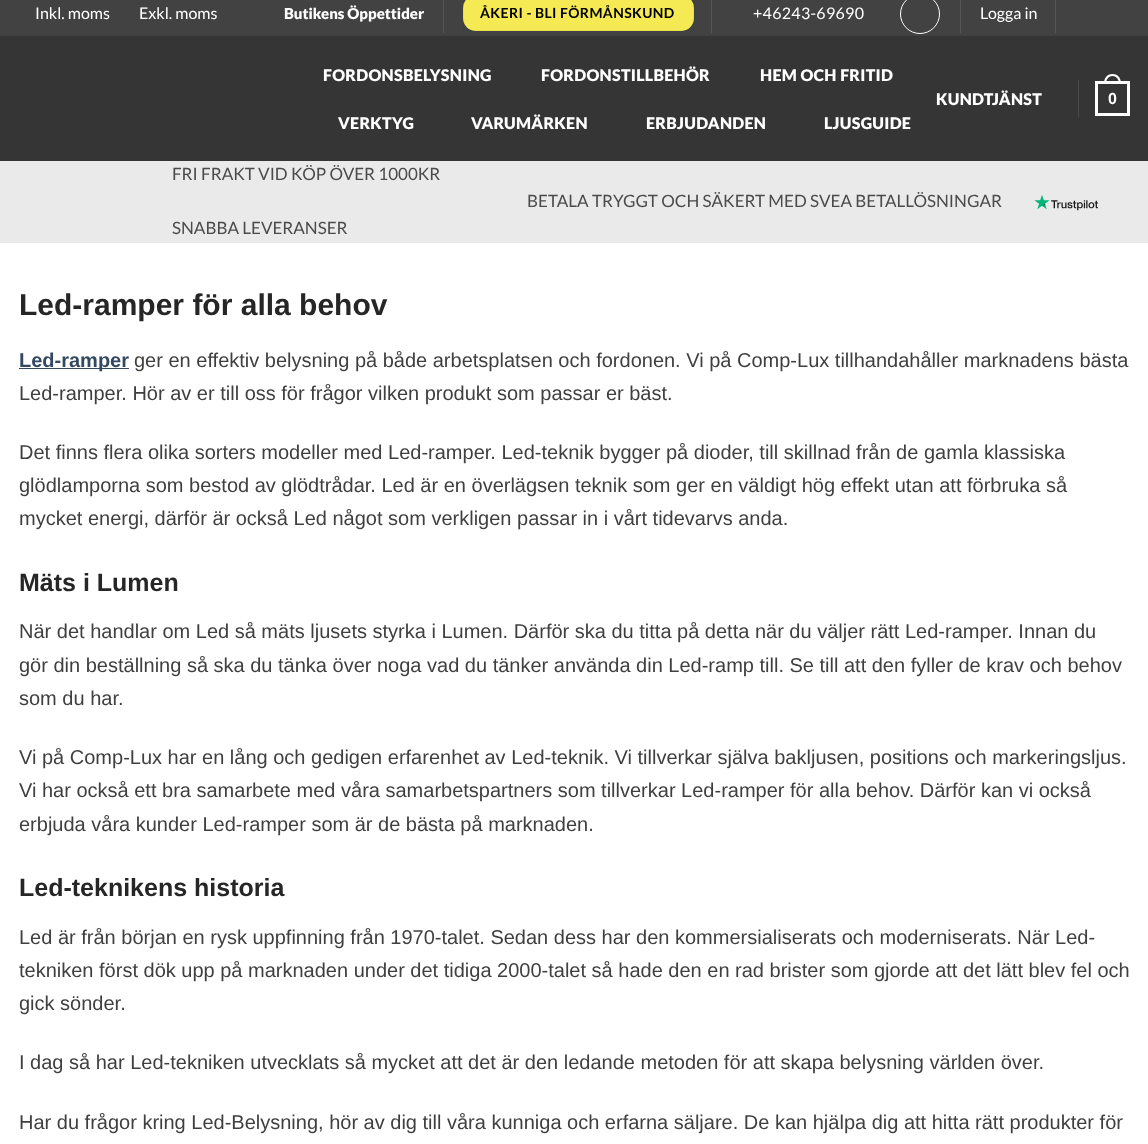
<!DOCTYPE html>
<meta charset="utf-8">
<style>body { margin: 0 } canvas { display: block }</style>
<canvas id="canvas" width="1148" height="1144"></canvas>
<script type="module">
  const canvas = document.getElementById("canvas");
  const ctx = canvas.getContext("2d");
  ctx.miterLimit = 4;
  ctx.fontKerning = "normal";
  async function loadImage(src) {
    const img = new Image();
    img.src = src;
    await img.decode();
    return img;
  }

  ctx.fillStyle = "#ffffff";
  ctx.fillRect(0, 0, 1148, 1144);
  ctx.fillStyle = "#424242";
  ctx.fillRect(0, 0, 1148, 36);
  ctx.font = "16px Lato";
  ctx.fillStyle = "#ffffff";
  ctx.fillText("Inkl. moms", 35, 19);
  ctx.fillText("Exkl. moms", 139, 19);
  ctx.font = "900 15px Lato";
  ctx.fillText("Butikens Öppettider", 284, 19);
  ctx.fillStyle = "#555555";
  ctx.fillRect(443, 0, 1, 33);
  ctx.fillStyle = "#f5ea53";
  ctx.beginPath();
  ctx.roundRect(463, -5, 231, 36, 13);
  ctx.fill();
  ctx.strokeStyle = "rgba(0, 0, 0, 0.05)";
  ctx.strokeRect(463.5, -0.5, 230, 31);
  ctx.letterSpacing = "0.4px";
  ctx.font = "bold 14px Lato";
  ctx.fillStyle = "#000000";
  ctx.fillText("ÅKERI - BLI FÖRMÅNSKUND", 480, 18);
  ctx.fillStyle = "#555555";
  ctx.fillRect(711, 0, 1, 33);
  ctx.letterSpacing = "0.3px";
  ctx.font = "16px Lato";
  ctx.fillStyle = "#ffffff";
  ctx.fillText("+46243-69690", 753, 19);
  ctx.beginPath();
  ctx.arc(920, 14, 19.5, 0, Math.PI * 2);
  ctx.strokeStyle = "#ffffff";
  ctx.stroke();
  ctx.fillStyle = "#555555";
  ctx.fillRect(960, 0, 1, 33);
  ctx.letterSpacing = "0px";
  ctx.fillStyle = "#ffffff";
  ctx.fillText("Logga in", 980, 19);
  ctx.fillStyle = "#555555";
  ctx.fillRect(1055, 0, 1, 33);
  ctx.fillStyle = "#353535";
  ctx.fillRect(0, 36, 1148, 125);
  ctx.letterSpacing = "0.3px";
  ctx.font = "900 16px Lato";
  ctx.fillStyle = "#ffffff";
  ctx.fillText("FORDONSBELYSNING", 323, 81);
  ctx.fillText("FORDONSTILLBEHÖR", 541, 81);
  ctx.fillText("HEM OCH FRITID", 760, 81);
  ctx.fillText("VERKTYG", 338, 129);
  ctx.fillText("VARUMÄRKEN", 471, 129);
  ctx.fillText("ERBJUDANDEN", 646, 129);
  ctx.fillText("LJUSGUIDE", 824, 129);
  ctx.fillText("KUNDTJÄNST", 936, 105);
  ctx.fillStyle = "#494949";
  ctx.fillRect(1078, 80, 1, 38);
  ctx.lineWidth = 3;
  ctx.strokeRect(1096.5, 82.5, 32, 32);
  ctx.fillStyle = "#ffffff";
  ctx.beginPath();
  ctx.moveTo(1112.5, 74);
  ctx.bezierCurveTo(1118.5, 74, 1121, 78.5, 1121, 84);
  ctx.lineTo(1104, 84);
  ctx.bezierCurveTo(1104, 78.5, 1106.5, 74, 1112.5, 74);
  ctx.closePath();
  ctx.moveTo(1112.5, 76);
  ctx.bezierCurveTo(1117, 76, 1119, 80, 1119, 84);
  ctx.lineTo(1106, 84);
  ctx.bezierCurveTo(1106, 80, 1108, 76, 1112.5, 76);
  ctx.closePath();
  ctx.fill("evenodd");
  ctx.font = "bold 16px Liberation Sans";
  ctx.fillText("0", 1108, 104);
  ctx.fillStyle = "#eaeaea";
  ctx.fillRect(0, 161, 1148, 82);
  ctx.letterSpacing = "0px";
  ctx.font = "17px Lato";
  ctx.fillStyle = "#4c4b4b";
  ctx.fillText("FRI FRAKT VID KÖP ÖVER 1000KR", 172, 180);
  ctx.fillText("BETALA TRYGGT OCH SÄKERT MED SVEA BETALLÖSNINGAR", 527, 207);
  ctx.fillText("SNABBA LEVERANSER", 172, 234);
  ctx.drawImage(await loadImage("img1.png"), 1034, 195, 64, 16);
  ctx.font = "bold 30px Liberation Sans";
  ctx.fillStyle = "#262626";
  ctx.fillText("Led-ramper för alla behov", 19, 315);
  ctx.fillStyle = "#334862";
  ctx.fillRect(19, 368, 110, 1);
  ctx.font = "bold 20px Liberation Sans";
  ctx.fillText("Led-ramper", 19, 367);
  ctx.font = "20px Liberation Sans";
  ctx.fillStyle = "#3f3f3f";
  ctx.fillText("ger en effektiv belysning på både arbetsplatsen och fordonen. Vi på Comp-Lux tillhandahåller marknadens bästa", 134, 367);
  ctx.fillText("Led-ramper. Hör av er till oss för frågor vilken produkt som passar er bäst.", 19, 400);
  ctx.fillText("Det finns flera olika sorters modeller med Led-ramper. Led-teknik bygger på dioder, till skillnad från de gamla klassiska", 19, 459);
  ctx.fillText("glödlamporna som bestod av glödtrådar. Led är en överlägsen teknik som ger en väldigt hög effekt utan att förbruka så", 19, 492);
  ctx.fillText("mycket energi, därför är också Led något som verkligen passar in i vårt tidevarvs anda.", 19, 525);
  ctx.font = "bold 25px Liberation Sans";
  ctx.fillStyle = "#262626";
  ctx.fillText("Mäts i Lumen", 19, 591);
  ctx.font = "20px Liberation Sans";
  ctx.fillStyle = "#3f3f3f";
  ctx.fillText("När det handlar om Led så mäts ljusets styrka i Lumen. Därför ska du titta på detta när du väljer rätt Led-ramper. Innan du", 19, 638);
  ctx.fillText("gör din beställning så ska du tänka över noga vad du tänker använda din Led-ramp till. Se till att den fyller de krav och behov", 19, 672);
  ctx.fillText("som du har.", 19, 705);
  ctx.fillText("Vi på Comp-Lux har en lång och gedigen erfarenhet av Led-teknik. Vi tillverkar själva bakljusen, positions och markeringsljus.", 19, 764);
  ctx.fillText("Vi har också ett bra samarbete med våra samarbetspartners som tillverkar Led-ramper för alla behov. Därför kan vi också", 19, 797);
  ctx.fillText("erbjuda våra kunder Led-ramper som är de bästa på marknaden.", 19, 831);
  ctx.font = "bold 25px Liberation Sans";
  ctx.fillStyle = "#262626";
  ctx.fillText("Led-teknikens historia", 19, 896);
  ctx.font = "20px Liberation Sans";
  ctx.fillStyle = "#3f3f3f";
  ctx.fillText("Led är från början en rysk uppfinning från 1970-talet. Sedan dess har den kommersialiserats och moderniserats. När Led-", 19, 944);
  ctx.fillText("tekniken först dök upp på marknaden under det tidiga 2000-talet så hade den en rad brister som gjorde att det lätt blev fel och", 19, 977);
  ctx.fillText("gick sönder.", 19, 1010);
  ctx.fillText("I dag så har Led-tekniken utvecklats så mycket att det är den ledande metoden för att skapa belysning världen över.", 19, 1069);
  ctx.fillText("Har du frågor kring Led-Belysning, hör av dig till våra kunniga och erfarna säljare. De kan hjälpa dig att hitta rätt produkter för", 19, 1129);
</script>
